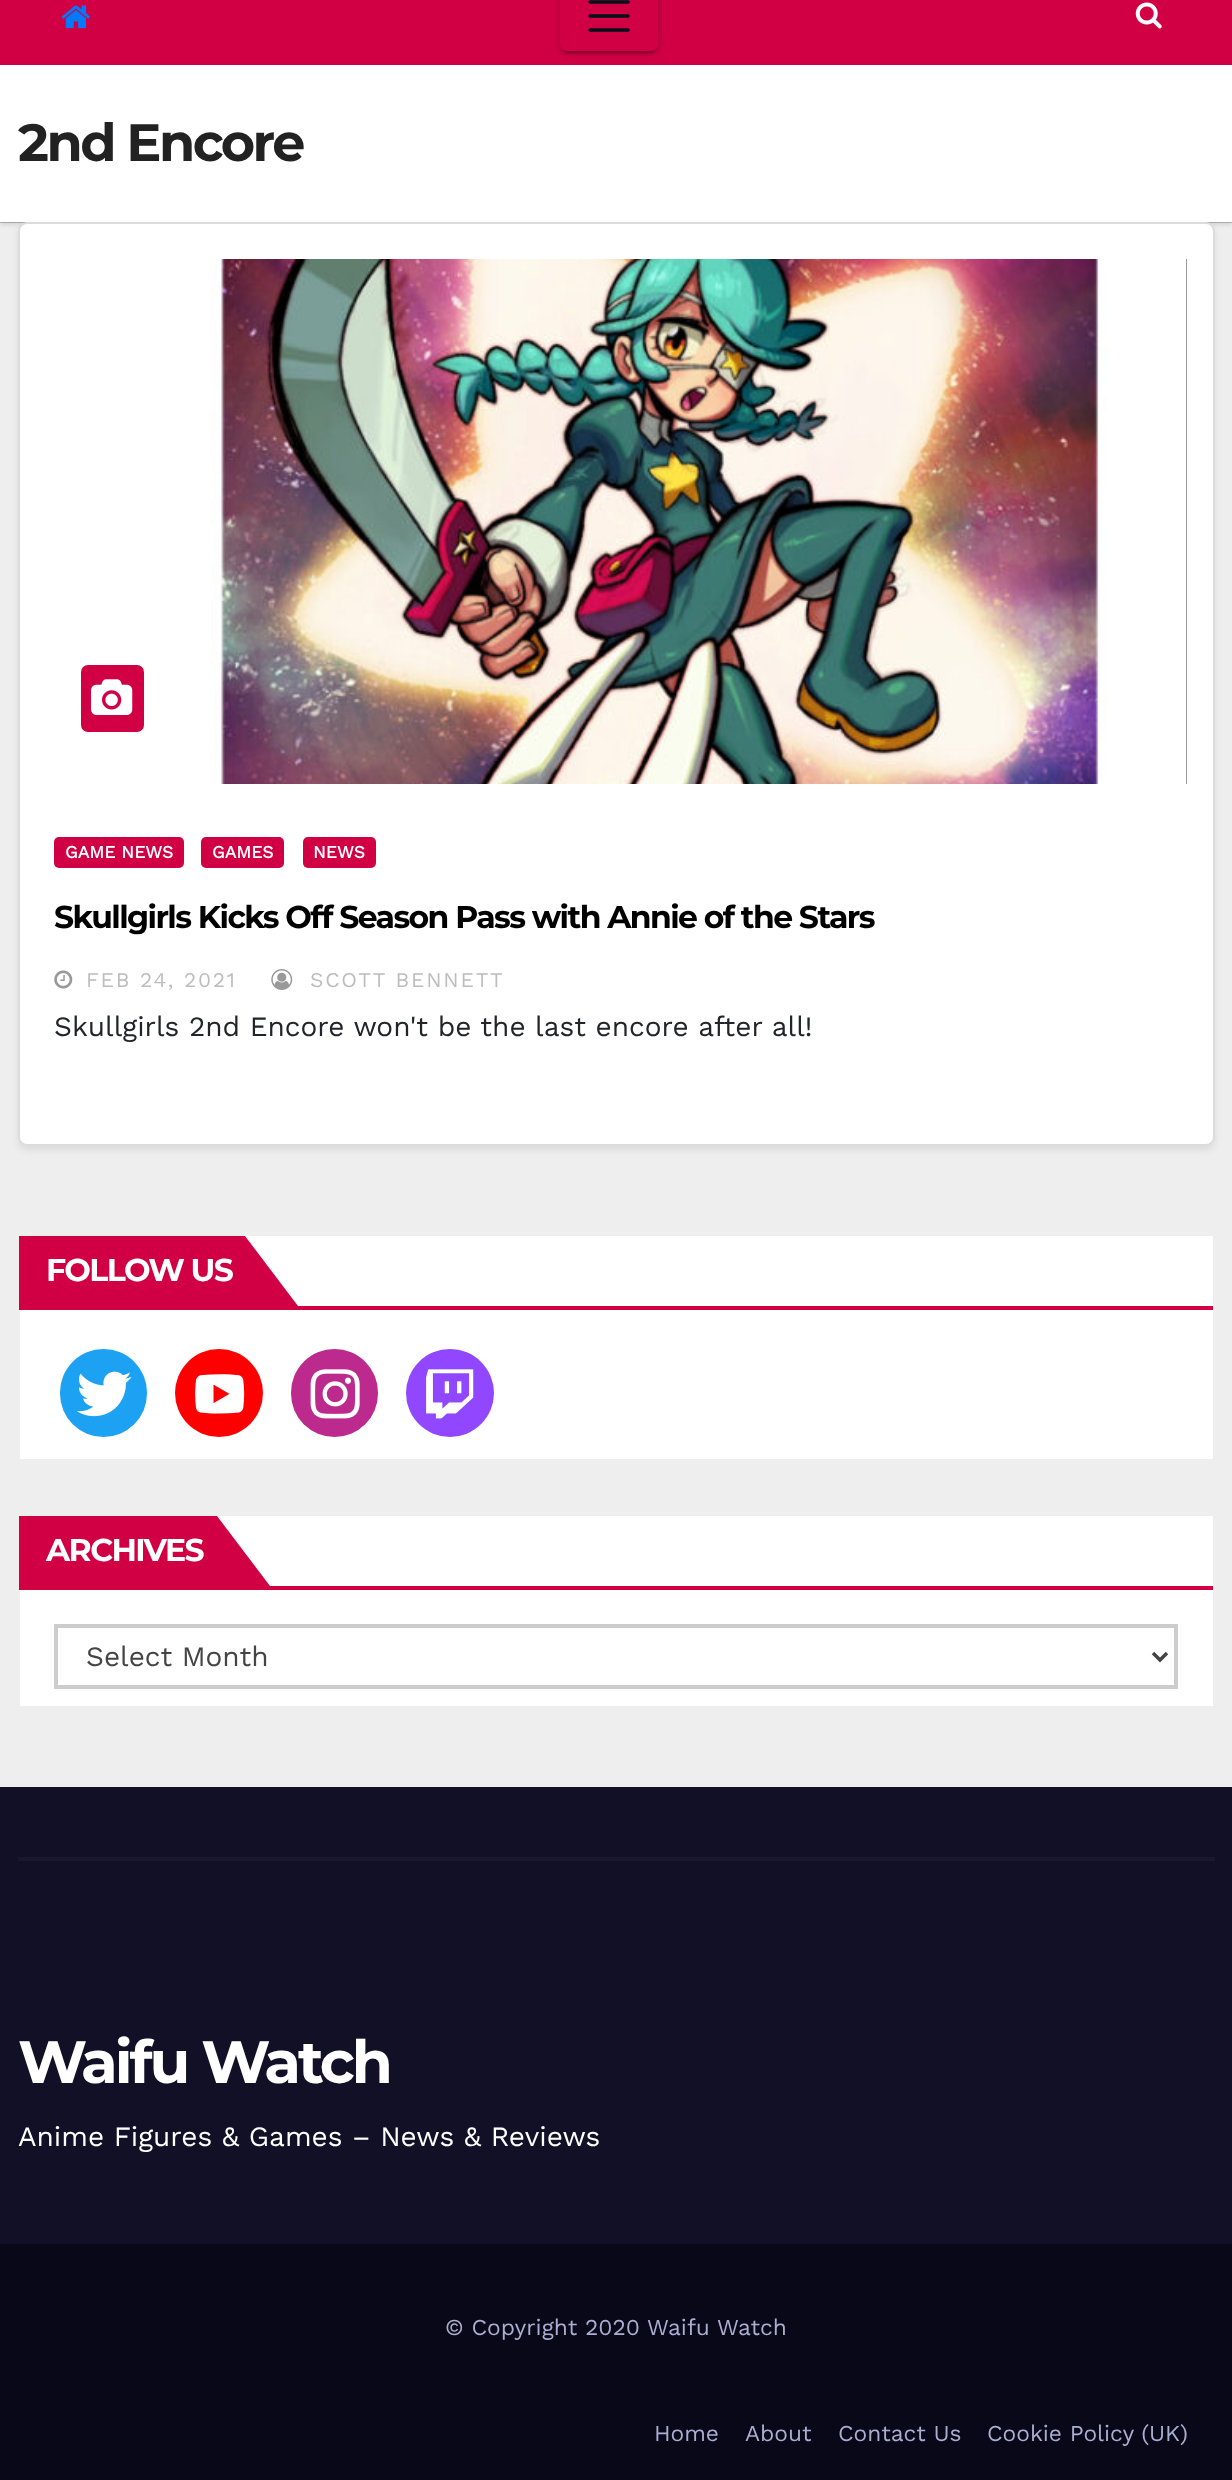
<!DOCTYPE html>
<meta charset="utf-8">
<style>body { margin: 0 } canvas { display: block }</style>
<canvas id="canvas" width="1232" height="2480"></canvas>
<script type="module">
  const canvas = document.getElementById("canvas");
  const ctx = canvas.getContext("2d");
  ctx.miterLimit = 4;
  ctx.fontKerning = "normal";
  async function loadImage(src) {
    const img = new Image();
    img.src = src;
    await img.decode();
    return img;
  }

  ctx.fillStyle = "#eeeeee";
  ctx.fillRect(0, 0, 1232, 2480);
  ctx.fillStyle = "rgba(0, 0, 0, 0.15)";
  ctx.filter = "blur(2.5px)";
  ctx.beginPath();
  ctx.rect(0, 67, 1232, 157);
  ctx.fill();
  ctx.filter = "none";
  ctx.fillStyle = "#d10045";
  ctx.fillRect(0, 0, 1232, 65);
  ctx.drawImage(await loadImage("img1.png"), 61, 5, 29, 23);
  ctx.fillStyle = "#ffffff";
  ctx.fillRect(0, 65, 1232, 157);
  ctx.save();
  ctx.beginPath();
  ctx.moveTo(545, 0);
  ctx.lineTo(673, 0);
  ctx.lineTo(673, 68);
  ctx.lineTo(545, 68);
  ctx.closePath();
  ctx.moveTo(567, -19);
  ctx.lineTo(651, -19);
  ctx.bezierCurveTo(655, -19, 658, -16, 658, -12);
  ctx.lineTo(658, 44);
  ctx.bezierCurveTo(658, 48, 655, 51, 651, 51);
  ctx.lineTo(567, 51);
  ctx.bezierCurveTo(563, 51, 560, 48, 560, 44);
  ctx.lineTo(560, -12);
  ctx.bezierCurveTo(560, -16, 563, -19, 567, -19);
  ctx.closePath();
  ctx.clip("evenodd");
  ctx.fillStyle = "rgba(0, 0, 0, 0.12)";
  ctx.filter = "blur(4.5px)";
  ctx.beginPath();
  ctx.roundRect(560, -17, 98, 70, 7);
  ctx.fill();
  ctx.filter = "none";
  ctx.restore();
  ctx.save();
  ctx.beginPath();
  ctx.moveTo(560, 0);
  ctx.lineTo(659, 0);
  ctx.lineTo(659, 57);
  ctx.lineTo(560, 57);
  ctx.closePath();
  ctx.moveTo(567, -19);
  ctx.lineTo(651, -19);
  ctx.bezierCurveTo(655, -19, 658, -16, 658, -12);
  ctx.lineTo(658, 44);
  ctx.bezierCurveTo(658, 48, 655, 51, 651, 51);
  ctx.lineTo(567, 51);
  ctx.bezierCurveTo(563, 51, 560, 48, 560, 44);
  ctx.lineTo(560, -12);
  ctx.bezierCurveTo(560, -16, 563, -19, 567, -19);
  ctx.closePath();
  ctx.clip("evenodd");
  ctx.fillStyle = "rgba(0, 0, 0, 0.2)";
  ctx.filter = "blur(1px)";
  ctx.beginPath();
  ctx.roundRect(564, -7, 91, 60, 4);
  ctx.fill();
  ctx.filter = "none";
  ctx.restore();
  ctx.save();
  ctx.beginPath();
  ctx.moveTo(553, 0);
  ctx.lineTo(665, 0);
  ctx.lineTo(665, 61);
  ctx.lineTo(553, 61);
  ctx.closePath();
  ctx.moveTo(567, -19);
  ctx.lineTo(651, -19);
  ctx.bezierCurveTo(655, -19, 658, -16, 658, -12);
  ctx.lineTo(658, 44);
  ctx.bezierCurveTo(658, 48, 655, 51, 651, 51);
  ctx.lineTo(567, 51);
  ctx.bezierCurveTo(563, 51, 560, 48, 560, 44);
  ctx.lineTo(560, -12);
  ctx.bezierCurveTo(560, -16, 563, -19, 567, -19);
  ctx.closePath();
  ctx.clip("evenodd");
  ctx.fillStyle = "rgba(0, 0, 0, 0.14)";
  ctx.filter = "blur(2px)";
  ctx.beginPath();
  ctx.roundRect(560, -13, 98, 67, 7);
  ctx.fill();
  ctx.filter = "none";
  ctx.restore();
  ctx.beginPath();
  ctx.moveTo(590, 2);
  ctx.lineTo(628, 2);
  ctx.moveTo(590, 16);
  ctx.lineTo(628, 16);
  ctx.moveTo(590, 30);
  ctx.lineTo(628, 30);
  ctx.strokeStyle = "#061018";
  ctx.lineWidth = 3.5;
  ctx.lineCap = "round";
  ctx.stroke();
  ctx.drawImage(await loadImage("img2.png"), 1135, 2, 27, 27);
  ctx.drawImage(await loadImage("img3.png"), 0, 222, 1232, 1);
  ctx.letterSpacing = "-2.6px";
  ctx.font = "bold 52.5px Montserrat";
  ctx.fillStyle = "#222222";
  ctx.fillText("2nd Encore", 18, 161);
  ctx.fillStyle = "rgba(0, 0, 0, 0.08)";
  ctx.filter = "blur(3.5px)";
  ctx.beginPath();
  ctx.roundRect(18, 226, 1197, 924, 9);
  ctx.fill();
  ctx.filter = "none";
  ctx.fillStyle = "#ffffff";
  ctx.beginPath();
  ctx.roundRect(19, 223, 1195, 922, 8);
  ctx.fill();
  ctx.strokeStyle = "#dddcdc";
  ctx.lineWidth = 2;
  ctx.stroke();
  ctx.fillStyle = "#333333";
  ctx.fillRect(1186, 259, 1, 525);
  ctx.drawImage(await loadImage("img4.png"), 46, 259, 1141, 525);
  ctx.fillStyle = "#d10045";
  ctx.beginPath();
  ctx.roundRect(81, 665, 63, 67, 7);
  ctx.fill();
  ctx.drawImage(await loadImage("img5.png"), 91, 679, 42, 36);
  ctx.beginPath();
  ctx.roundRect(54, 837, 130, 31, 5);
  ctx.fill();
  ctx.letterSpacing = "0px";
  ctx.font = "bold 17.5px Work Sans";
  ctx.fillStyle = "#ffffff";
  ctx.fillText("GAME NEWS", 65, 858);
  ctx.fillStyle = "#d10045";
  ctx.beginPath();
  ctx.roundRect(201, 837, 83, 31, 5);
  ctx.fill();
  ctx.fillStyle = "#ffffff";
  ctx.fillText("GAMES", 212, 858);
  ctx.fillStyle = "#d10045";
  ctx.beginPath();
  ctx.roundRect(303, 837, 73, 31, 5);
  ctx.fill();
  ctx.fillStyle = "#ffffff";
  ctx.fillText("NEWS", 313, 858);
  ctx.letterSpacing = "-1.57px";
  ctx.font = "bold 31.5px Montserrat";
  ctx.fillStyle = "#000000";
  ctx.fillText("Skullgirls Kicks Off Season Pass with Annie of the Stars", 54, 928);
  ctx.drawImage(await loadImage("img6.png"), 54, 970, 19, 19);
  ctx.letterSpacing = "1.75px";
  ctx.font = "21px Work Sans";
  ctx.fillStyle = "#bdbdbd";
  ctx.fillText("FEB 24, 2021", 86, 987);
  ctx.drawImage(await loadImage("img7.png"), 271, 969, 22, 21);
  ctx.fillText("SCOTT BENNETT", 310, 987);
  ctx.letterSpacing = "0px";
  ctx.font = "28px Work Sans";
  ctx.fillStyle = "#212529";
  ctx.fillText("Skullgirls 2nd Encore won't be the last encore after all!", 54, 1036);
  ctx.fillStyle = "#ffffff";
  ctx.fillRect(20, 1236, 1193, 223);
  ctx.fillStyle = "#d10045";
  ctx.fillRect(19, 1306, 1194, 4);
  ctx.fillRect(19, 1236, 226, 70);
  ctx.letterSpacing = "-1.57px";
  ctx.font = "bold 31.5px Montserrat";
  ctx.fillStyle = "#ffffff";
  ctx.fillText("FOLLOW US", 46, 1281);
  ctx.fillStyle = "#d10045";
  ctx.beginPath();
  ctx.moveTo(245, 1306);
  ctx.lineTo(245, 1236);
  ctx.lineTo(298, 1306);
  ctx.closePath();
  ctx.fill();
  ctx.fillStyle = "#1da1f2";
  ctx.beginPath();
  ctx.roundRect(60, 1349, 87, 88, 43.5);
  ctx.fill();
  ctx.drawImage(await loadImage("img8.png"), 77, 1371, 55, 46);
  ctx.fillStyle = "#ff0000";
  ctx.beginPath();
  ctx.arc(219, 1393, 44, 0, Math.PI * 2);
  ctx.fill();
  ctx.drawImage(await loadImage("img9.png"), 195, 1374, 50, 40);
  ctx.fillStyle = "#bc2a8d";
  ctx.beginPath();
  ctx.roundRect(291, 1349, 87, 88, 43.5);
  ctx.fill();
  ctx.drawImage(await loadImage("img10.png"), 310, 1369, 50, 50);
  ctx.fillStyle = "#9146ff";
  ctx.beginPath();
  ctx.arc(450, 1393, 44, 0, Math.PI * 2);
  ctx.fill();
  ctx.drawImage(await loadImage("img11.png"), 426, 1369, 48, 50);
  ctx.fillStyle = "#ffffff";
  ctx.fillRect(20, 1516, 1193, 190);
  ctx.fillStyle = "#d10045";
  ctx.fillRect(19, 1586, 1194, 4);
  ctx.fillRect(19, 1516, 198, 70);
  ctx.fillStyle = "#ffffff";
  ctx.fillText("ARCHIVES", 46, 1561);
  ctx.fillStyle = "#d10045";
  ctx.beginPath();
  ctx.moveTo(217, 1586);
  ctx.lineTo(217, 1516);
  ctx.lineTo(270, 1586);
  ctx.closePath();
  ctx.fill();
  ctx.strokeStyle = "#cccccc";
  ctx.lineWidth = 4;
  ctx.strokeRect(56, 1626, 1120, 61);
  ctx.beginPath();
  ctx.moveTo(1153, 1653);
  ctx.lineTo(1160, 1660);
  ctx.lineTo(1167, 1653);
  ctx.strokeStyle = "#444444";
  ctx.lineWidth = 3.5;
  ctx.lineCap = "butt";
  ctx.stroke();
  ctx.letterSpacing = "0px";
  ctx.font = "28px Work Sans";
  ctx.fillStyle = "#444444";
  ctx.fillText("Select Month", 86, 1666);
  ctx.fillStyle = "#121026";
  ctx.fillRect(0, 1787, 1232, 457);
  ctx.fillStyle = "#1a182e";
  ctx.fillRect(18, 1857, 1197, 4);
  ctx.letterSpacing = "-3px";
  ctx.font = "bold 59.5px Montserrat";
  ctx.fillStyle = "#ffffff";
  ctx.fillText("Waifu Watch", 18, 2083);
  ctx.letterSpacing = "0px";
  ctx.font = "28px Work Sans";
  ctx.fillText("Anime Figures & Games – News & Reviews", 18, 2146);
  ctx.fillStyle = "#090818";
  ctx.fillRect(0, 2244, 1232, 236);
  ctx.font = "22.75px Work Sans";
  ctx.fillStyle = "#aaaed1";
  ctx.fillText("© Copyright 2020 Waifu Watch", 445, 2335);
  ctx.fillText("Home", 654, 2441);
  ctx.fillText("About", 745, 2441);
  ctx.fillText("Contact Us", 838, 2441);
  ctx.fillText("Cookie Policy (UK)", 987, 2441);
</script>
